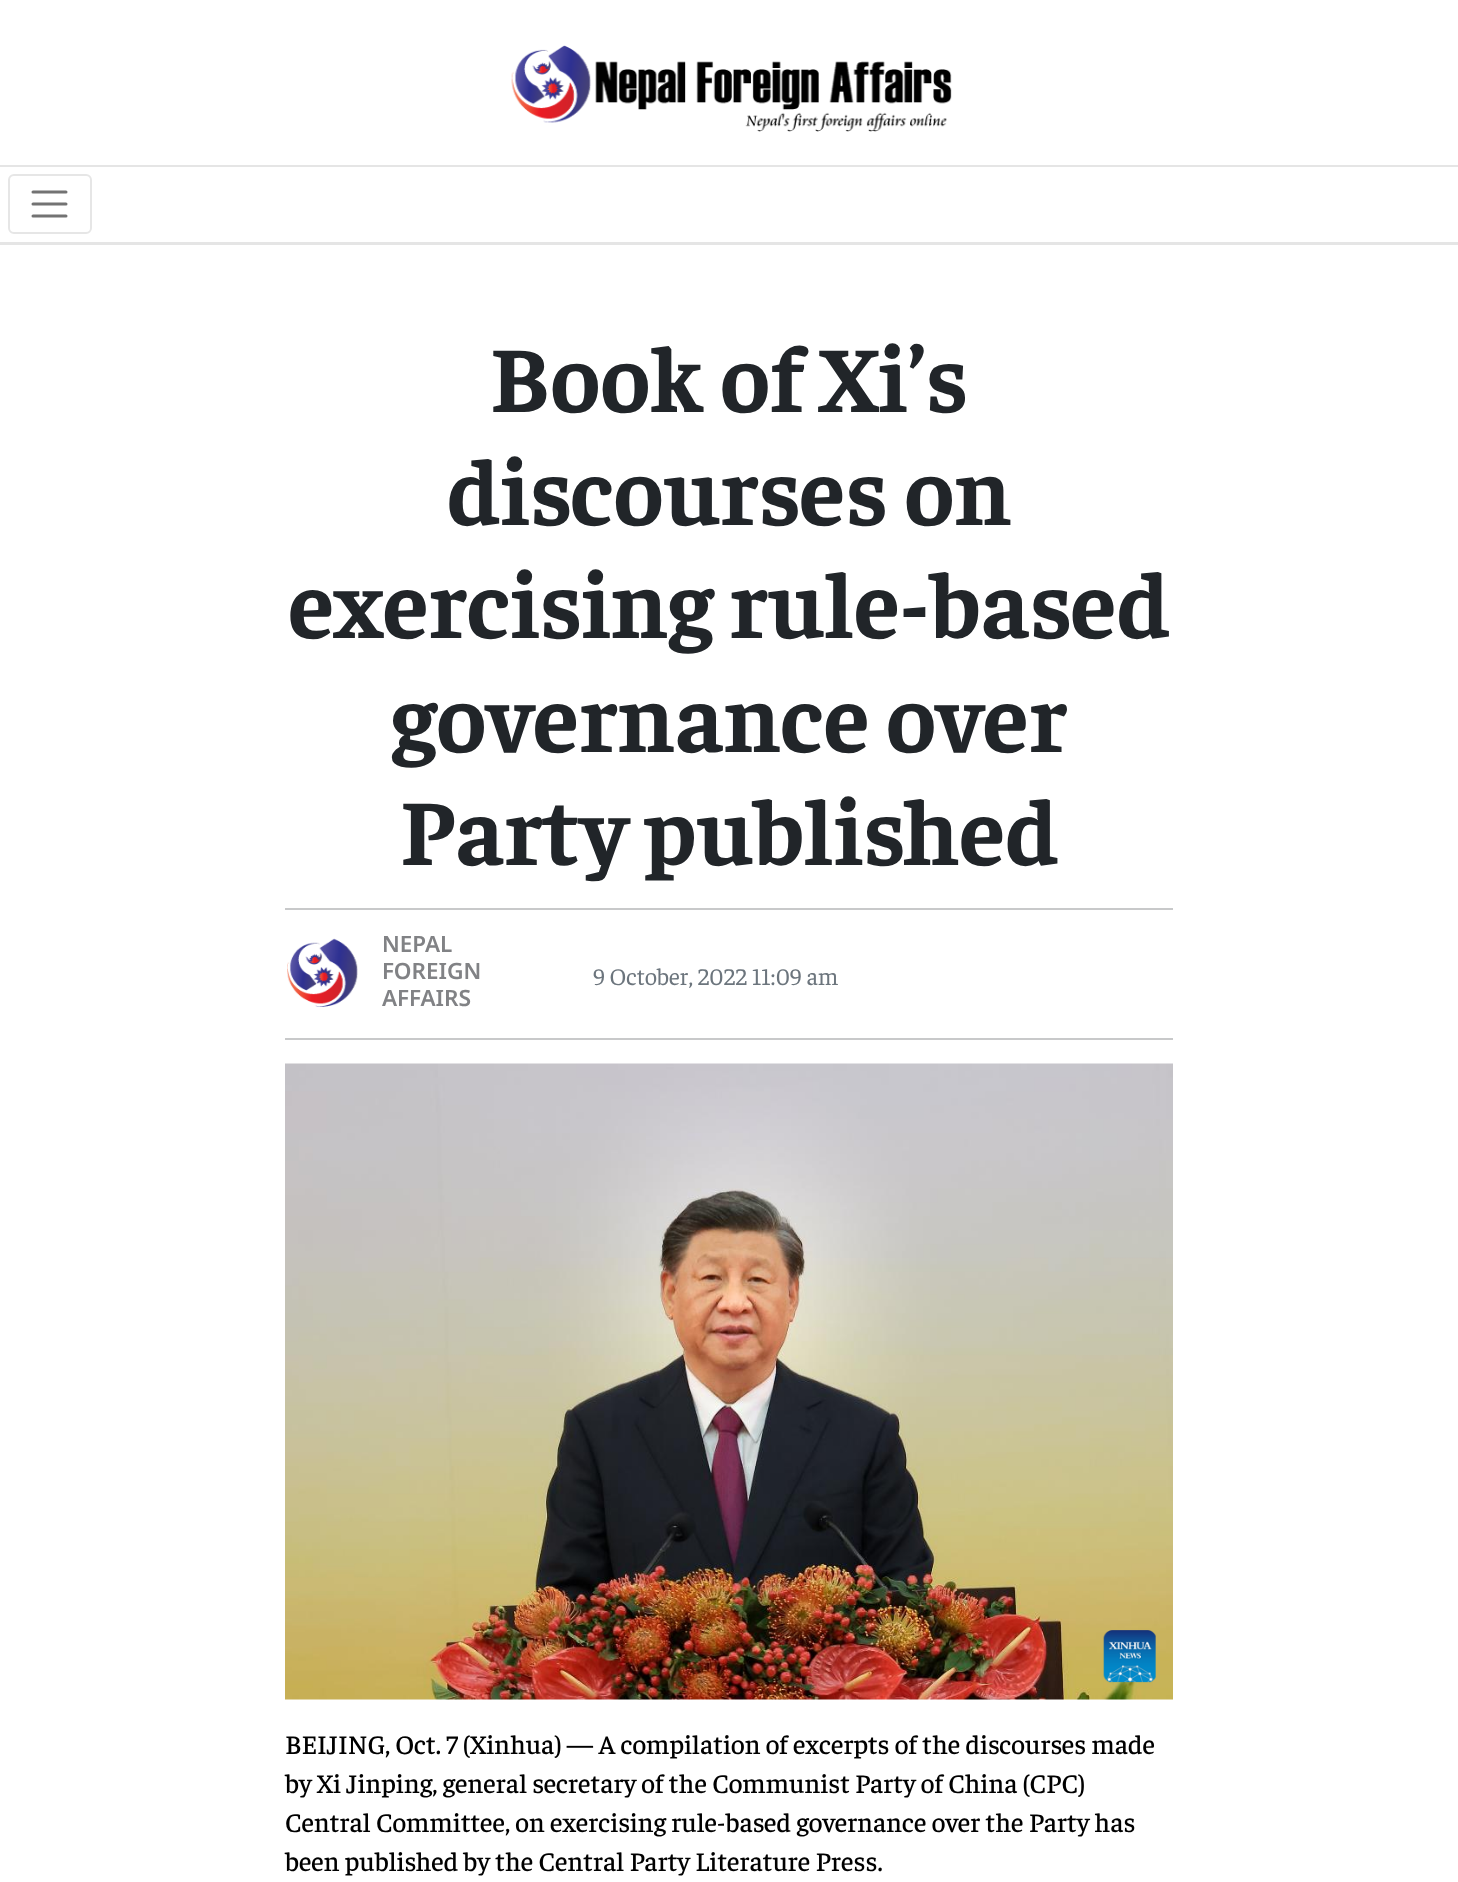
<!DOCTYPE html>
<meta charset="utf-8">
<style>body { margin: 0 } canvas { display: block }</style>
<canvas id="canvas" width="1458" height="1882"></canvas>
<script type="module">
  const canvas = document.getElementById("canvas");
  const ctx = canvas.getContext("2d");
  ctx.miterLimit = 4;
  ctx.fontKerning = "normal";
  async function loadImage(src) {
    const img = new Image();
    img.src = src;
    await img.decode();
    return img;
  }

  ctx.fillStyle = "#ffffff";
  ctx.fillRect(0, 0, 1458, 1882);
  ctx.drawImage(await loadImage("img1.png"), 511, 45, 441, 87);
  ctx.fillStyle = "#e5e5e5";
  ctx.fillRect(0, 165, 1458, 2);
  ctx.fillRect(0, 242, 1458, 3);
  ctx.beginPath();
  ctx.roundRect(9, 175, 82, 58, 5);
  ctx.strokeStyle = "#e6e6e6";
  ctx.lineWidth = 2;
  ctx.stroke();
  ctx.beginPath();
  ctx.moveTo(33, 192);
  ctx.lineTo(66, 192);
  ctx.moveTo(33, 204);
  ctx.lineTo(66, 204);
  ctx.moveTo(33, 216);
  ctx.lineTo(66, 216);
  ctx.strokeStyle = "#737373";
  ctx.lineWidth = 3;
  ctx.lineCap = "round";
  ctx.stroke();
  ctx.font = "bold 94.5px Faustina";
  ctx.fillStyle = "#212529";
  ctx.fillText("Book of Xi’s", 490, 412);
  ctx.fillText("discourses on", 447, 525);
  ctx.fillText("exercising rule-based", 288, 638);
  ctx.fillText("governance over", 391, 752);
  ctx.fillText("Party published", 400, 865);
  ctx.fillStyle = "#c8c9ca";
  ctx.fillRect(285, 908, 888, 2);
  ctx.drawImage(await loadImage("img2.png"), 287, 938, 71, 69);
  ctx.font = "600 22.5px Noto Sans Devanagari";
  ctx.fillStyle = "#818285";
  ctx.fillText("NEPAL", 382, 952);
  ctx.fillText("FOREIGN", 382, 979);
  ctx.fillText("AFFAIRS", 382, 1006);
  ctx.font = "24px Faustina";
  ctx.fillStyle = "#6c757d";
  ctx.fillText("9 October, 2022 11:09 am", 593, 985);
  ctx.fillStyle = "#c8c9ca";
  ctx.fillRect(285, 1038, 888, 2);
  ctx.drawImage(await loadImage("img3.png"), 285, 1063, 888, 637);
  ctx.font = "500 27px Faustina";
  ctx.fillStyle = "#000000";
  ctx.fillText("BEIJING, Oct. 7 (Xinhua) — A compilation of excerpts of the discourses made", 285, 1754);
  ctx.fillText("by Xi Jinping, general secretary of the Communist Party of China (CPC)", 285, 1793);
  ctx.fillText("Central Committee, on exercising rule-based governance over the Party has", 285, 1832);
  ctx.fillText("been published by the Central Party Literature Press.", 285, 1871);
</script>
